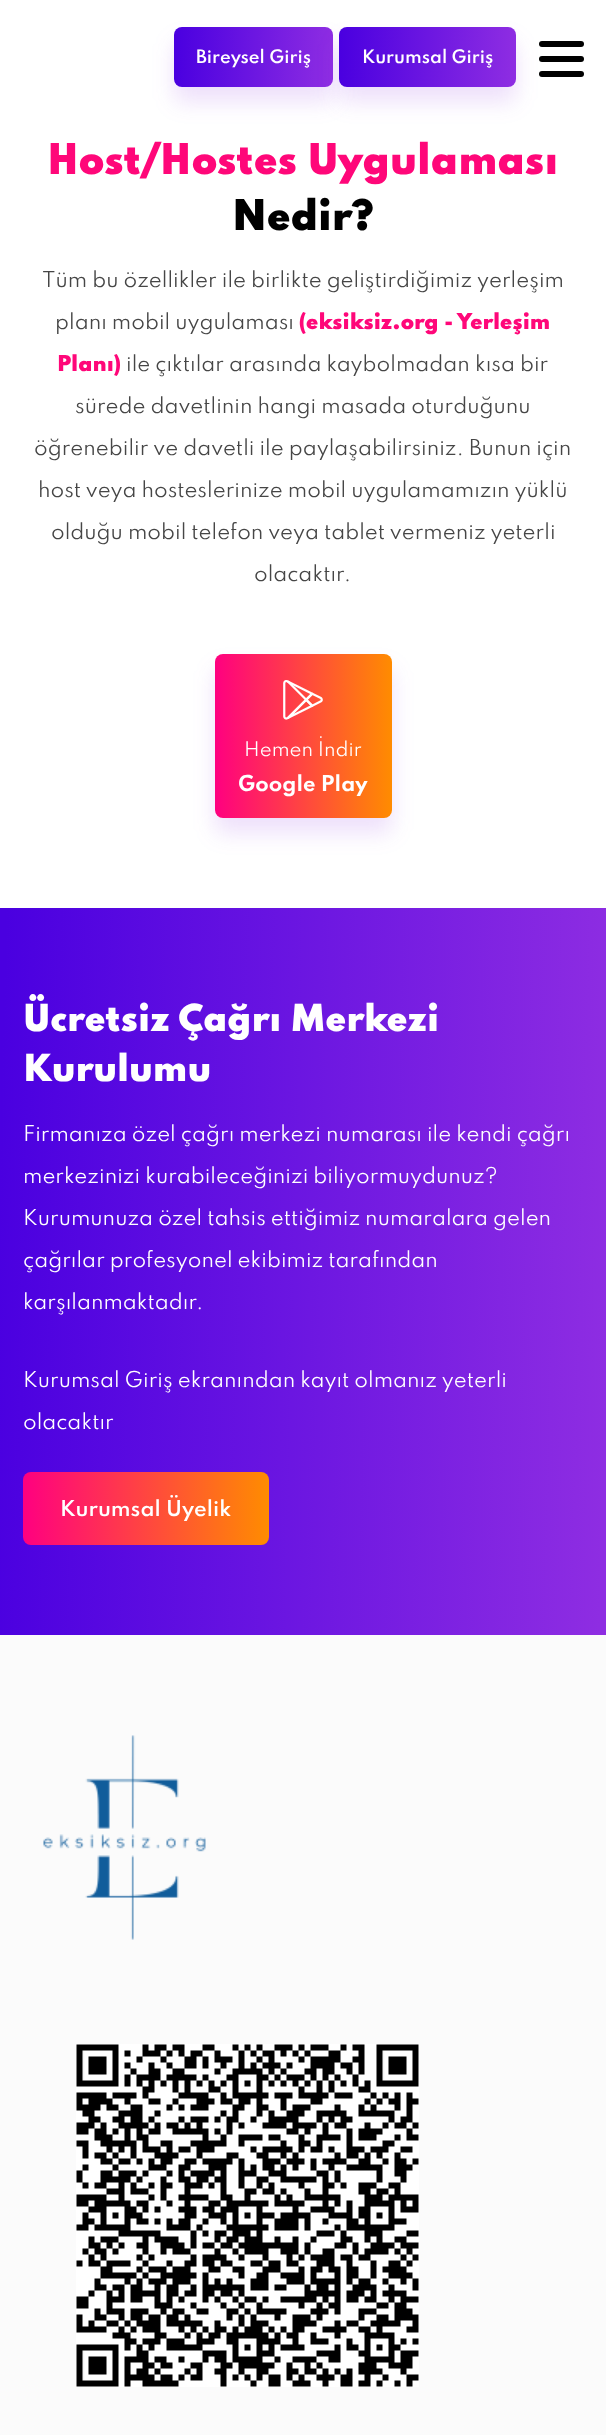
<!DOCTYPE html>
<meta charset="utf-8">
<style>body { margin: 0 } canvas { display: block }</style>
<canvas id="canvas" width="606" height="2435"></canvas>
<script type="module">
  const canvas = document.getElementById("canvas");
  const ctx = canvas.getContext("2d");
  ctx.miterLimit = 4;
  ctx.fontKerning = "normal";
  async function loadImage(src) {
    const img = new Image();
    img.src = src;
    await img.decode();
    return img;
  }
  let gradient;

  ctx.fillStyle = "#ffffff";
  ctx.fillRect(0, 0, 606, 2435);
  ctx.fillStyle = "rgba(142, 45, 226, 0.15)";
  ctx.filter = "blur(11px)";
  ctx.beginPath();
  ctx.roundRect(174, 42, 159, 60, 8);
  ctx.fill();
  ctx.filter = "none";
  gradient = ctx.createLinearGradient(173, 55, 334, 59);
  gradient.addColorStop(0.01, "#4a00e0");
  gradient.addColorStop(0.99, "#8e2de2");
  ctx.fillStyle = gradient;
  ctx.beginPath();
  ctx.roundRect(174, 27, 159, 60, 8);
  ctx.fill();
  ctx.font = "600 16.5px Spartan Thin";
  ctx.fillStyle = "#ffffff";
  ctx.fillText("Bireysel Giriş", 196, 63);
  ctx.fillStyle = "#000000";
  ctx.beginPath();
  ctx.roundRect(539, 41, 45, 6, 3);
  ctx.fill();
  ctx.beginPath();
  ctx.roundRect(539, 56, 45, 6, 3);
  ctx.fill();
  ctx.beginPath();
  ctx.roundRect(539, 71, 45, 6, 3);
  ctx.fill();
  ctx.fillStyle = "rgba(142, 45, 226, 0.15)";
  ctx.filter = "blur(11px)";
  ctx.beginPath();
  ctx.roundRect(339, 42, 177, 60, 8);
  ctx.fill();
  ctx.filter = "none";
  gradient = ctx.createLinearGradient(338, 55, 517, 59);
  gradient.addColorStop(0.01, "#4a00e0");
  gradient.addColorStop(0.99, "#8e2de2");
  ctx.fillStyle = gradient;
  ctx.beginPath();
  ctx.roundRect(339, 27, 177, 60, 8);
  ctx.fill();
  ctx.fillStyle = "#ffffff";
  ctx.fillText("Kurumsal Giriş", 362, 63);
  ctx.font = "900 37.5px Spartan Thin";
  ctx.fillStyle = "#ff0779";
  ctx.fillText("Host/Hostes Uygulaması", 47, 174);
  ctx.fillStyle = "#000000";
  ctx.fillText("Nedir?", 232, 230);
  ctx.font = "19.5px Spartan Thin";
  ctx.fillStyle = "#464646";
  ctx.fillText("Tüm bu özellikler ile birlikte geliştirdiğimiz yerleşim", 42, 287);
  ctx.fillText("planı mobil uygulaması", 55, 329);
  ctx.font = "900 19.5px Spartan Thin";
  ctx.fillStyle = "#ff0779";
  ctx.fillText("(eksiksiz.org - Yerleşim", 299, 329);
  ctx.fillText("Planı)", 57, 371);
  ctx.font = "19.5px Spartan Thin";
  ctx.fillStyle = "#464646";
  ctx.fillText("ile çıktılar arasında kaybolmadan kısa bir", 126, 371);
  ctx.fillText("sürede davetlinin hangi masada oturduğunu", 75, 413);
  ctx.fillText("öğrenebilir ve davetli ile paylaşabilirsiniz. Bunun için", 34, 455);
  ctx.fillText("host veya hosteslerinize mobil uygulamamızın yüklü", 38, 497);
  ctx.fillText("olduğu mobil telefon veya tablet vermeniz yeterli", 51, 539);
  ctx.fillText("olacaktır.", 254, 581);
  ctx.fillStyle = "rgba(142, 45, 226, 0.15)";
  ctx.filter = "blur(11px)";
  ctx.beginPath();
  ctx.roundRect(215, 669, 177, 164, 8);
  ctx.fill();
  ctx.filter = "none";
  gradient = ctx.createLinearGradient(215, 736, 392, 736);
  gradient.addColorStop(0, "#ff0080");
  gradient.addColorStop(1, "#ff8c00");
  ctx.fillStyle = gradient;
  ctx.beginPath();
  ctx.roundRect(215, 654, 177, 164, 8);
  ctx.fill();
  ctx.drawImage(await loadImage("img1.png"), 283, 680, 40, 40);
  ctx.font = "18px Spartan Thin";
  ctx.fillStyle = "#ffffff";
  ctx.fillText("Hemen İndir", 244, 756);
  ctx.font = "bold 19.5px Spartan Thin";
  ctx.fillText("Google Play", 238, 791);
  gradient = ctx.createLinearGradient(-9, 1263, 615, 1279);
  gradient.addColorStop(0.01, "#4a00e0");
  gradient.addColorStop(0.99, "#8e2de2");
  ctx.fillStyle = gradient;
  ctx.fillRect(0, 908, 606, 727);
  ctx.font = "900 33px Spartan Thin";
  ctx.fillStyle = "#ffffff";
  ctx.fillText("Ücretsiz Çağrı Merkezi", 23, 1031);
  ctx.fillText("Kurulumu", 23, 1081);
  ctx.font = "19.5px Spartan Thin";
  ctx.fillText("Firmanıza özel çağrı merkezi numarası ile kendi çağrı", 23, 1141);
  ctx.fillText("merkezinizi kurabileceğinizi biliyormuydunuz?", 23, 1183);
  ctx.fillText("Kurumunuza özel tahsis ettiğimiz numaralara gelen", 23, 1225);
  ctx.fillText("çağrılar profesyonel ekibimiz tarafından", 23, 1267);
  ctx.fillText("karşılanmaktadır.", 23, 1309);
  ctx.fillText("Kurumsal Giriş ekranından kayıt olmanız yeterli", 23, 1387);
  ctx.fillText("olacaktır", 23, 1429);
  gradient = ctx.createLinearGradient(23, 1508, 269, 1508);
  gradient.addColorStop(0, "#ff0080");
  gradient.addColorStop(1, "#ff8c00");
  ctx.fillStyle = gradient;
  ctx.beginPath();
  ctx.roundRect(23, 1472, 246, 73, 8);
  ctx.fill();
  ctx.font = "600 19.5px Spartan Thin";
  ctx.fillStyle = "#ffffff";
  ctx.fillText("Kurumsal Üyelik", 60, 1516);
  ctx.fillStyle = "#fbfbfb";
  ctx.fillRect(0, 1635, 606, 800);
  ctx.drawImage(await loadImage("img2.png"), 43, 1735, 163, 205);
  ctx.drawImage(await loadImage("img3.png"), 76, 2044, 343, 343);
</script>
